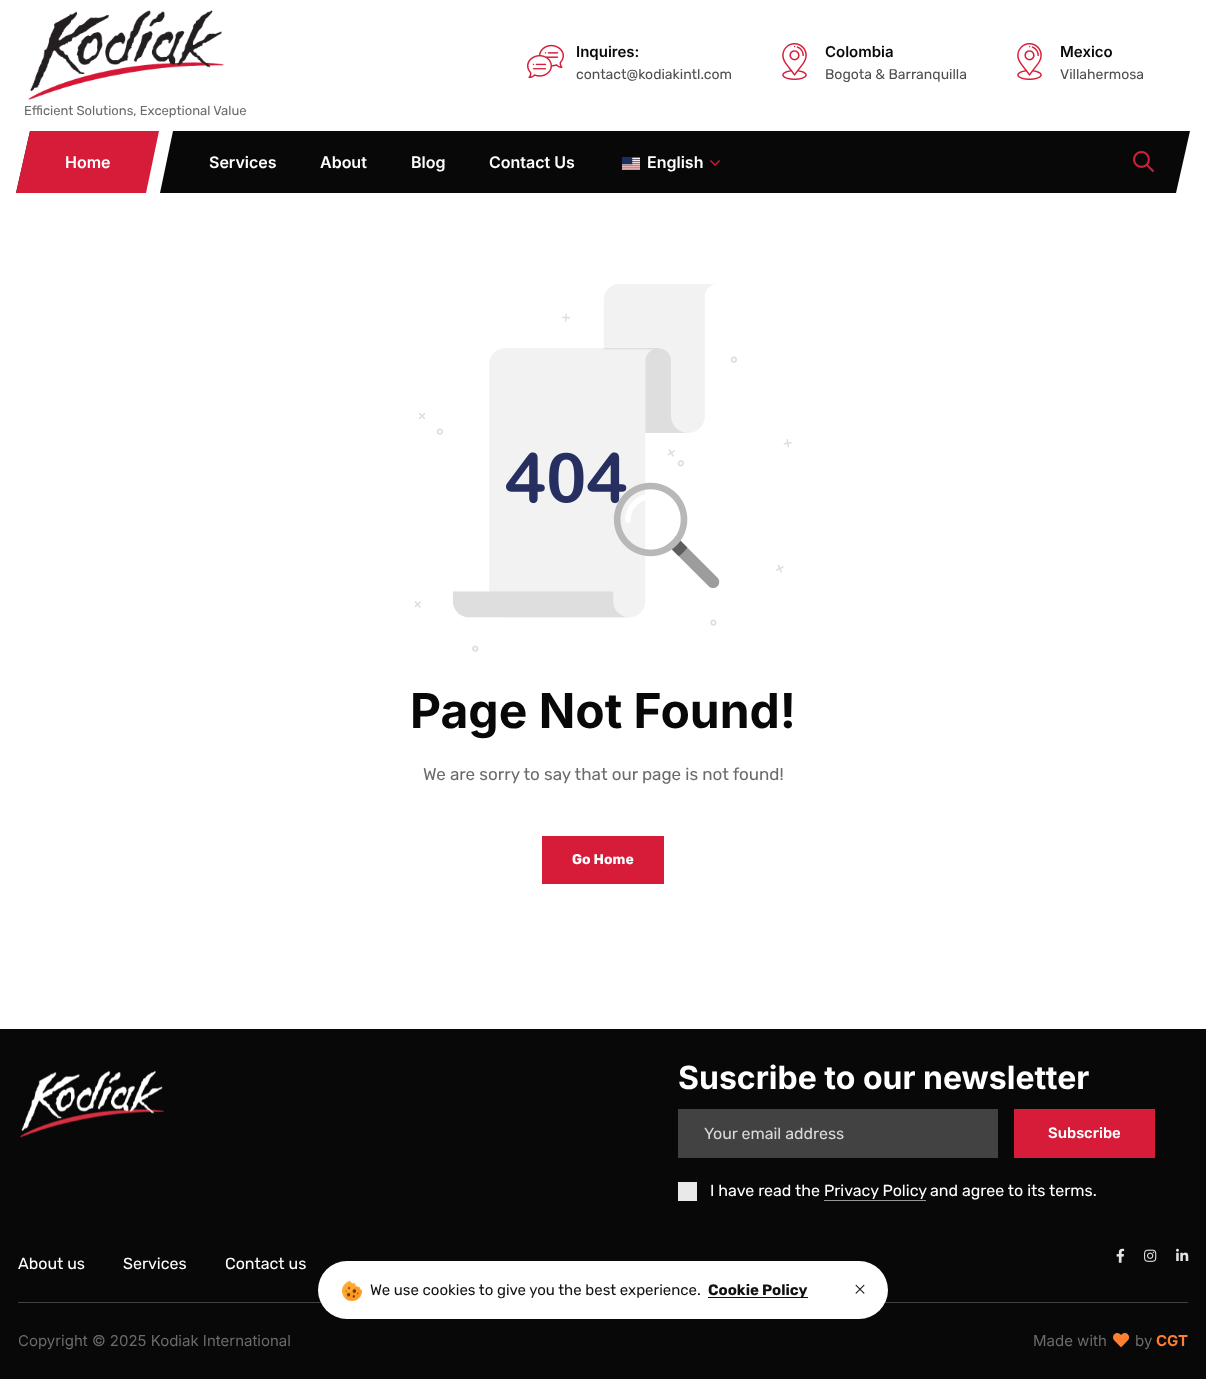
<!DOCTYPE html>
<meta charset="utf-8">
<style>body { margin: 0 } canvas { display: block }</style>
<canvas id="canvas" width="1206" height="1379"></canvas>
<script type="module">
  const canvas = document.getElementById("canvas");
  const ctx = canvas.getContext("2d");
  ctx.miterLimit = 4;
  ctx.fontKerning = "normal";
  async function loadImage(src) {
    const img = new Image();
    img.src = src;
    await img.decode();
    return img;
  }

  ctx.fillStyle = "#ffffff";
  ctx.fillRect(0, 0, 1206, 1379);
  ctx.drawImage(await loadImage("img1.png"), 527, 44, 37, 35);
  ctx.font = "600 15px Inter";
  ctx.fillStyle = "#080808";
  ctx.fillText("Inquires:", 576, 57);
  ctx.font = "14px Rubik";
  ctx.fillStyle = "#4e4e4e";
  ctx.fillText("contact@kodiakintl.com", 576, 79);
  ctx.drawImage(await loadImage("img2.png"), 782, 43, 25, 37);
  ctx.font = "600 15px Inter";
  ctx.fillStyle = "#080808";
  ctx.fillText("Colombia", 825, 57);
  ctx.font = "14px Rubik";
  ctx.fillStyle = "#4e4e4e";
  ctx.fillText("Bogota & Barranquilla", 825, 79);
  ctx.drawImage(await loadImage("img2.png"), 1017, 43, 25, 37);
  ctx.font = "600 15px Inter";
  ctx.fillStyle = "#080808";
  ctx.fillText("Mexico", 1060, 57);
  ctx.font = "14px Rubik";
  ctx.fillStyle = "#4e4e4e";
  ctx.fillText("Villahermosa", 1060, 79);
  ctx.drawImage(await loadImage("img3.png"), 28, 10, 196, 90);
  ctx.font = "13px Rubik";
  ctx.fillStyle = "#6b6b6b";
  ctx.fillText("Efficient Solutions, Exceptional Value", 24, 115);
  ctx.fillStyle = "#080808";
  ctx.beginPath();
  ctx.moveTo(30, 131);
  ctx.lineTo(1190, 131);
  ctx.lineTo(1176, 193);
  ctx.lineTo(16, 193);
  ctx.closePath();
  ctx.fill();
  ctx.fillStyle = "#ffffff";
  ctx.beginPath();
  ctx.moveTo(44, 131);
  ctx.lineTo(173, 131);
  ctx.lineTo(160, 193);
  ctx.lineTo(30, 193);
  ctx.closePath();
  ctx.fill();
  ctx.fillStyle = "#d61c38";
  ctx.beginPath();
  ctx.moveTo(30, 131);
  ctx.lineTo(159, 131);
  ctx.lineTo(146, 193);
  ctx.lineTo(16, 193);
  ctx.closePath();
  ctx.fill();
  ctx.font = "600 16px Inter";
  ctx.fillStyle = "#ffffff";
  ctx.fillText("Home", 65, 168);
  ctx.fillText("Services", 209, 168);
  ctx.fillText("About", 320, 168);
  ctx.fillText("Blog", 411, 168);
  ctx.fillText("Contact Us", 489, 168);
  ctx.drawImage(await loadImage("img4.png"), 622, 157, 18, 13);
  ctx.fillText("English", 647, 168);
  ctx.drawImage(await loadImage("img5.png"), 710, 160, 10, 6);
  ctx.drawImage(await loadImage("img6.png"), 1133, 151, 21, 21);
  ctx.drawImage(await loadImage("img7.png"), 414, 284, 378, 368);
  ctx.font = "bold 48px Inter";
  ctx.fillStyle = "#080808";
  ctx.fillText("Page Not Found!", 410, 728);
  ctx.font = "17px Rubik";
  ctx.fillStyle = "#6b6b6b";
  ctx.fillText("We are sorry to say that our page is not found!", 423, 780);
  ctx.fillStyle = "#d61c38";
  ctx.fillRect(542, 836, 122, 48);
  ctx.font = "bold 14px Rubik";
  ctx.fillStyle = "#ffffff";
  ctx.fillText("Go Home", 572, 864);
  ctx.fillStyle = "#080808";
  ctx.fillRect(0, 1029, 1206, 350);
  ctx.drawImage(await loadImage("img8.png"), 20, 1070, 144, 68);
  ctx.font = "bold 32px Inter";
  ctx.fillStyle = "#ffffff";
  ctx.fillText("Suscribe to our newsletter", 678, 1089);
  ctx.fillStyle = "#424242";
  ctx.fillRect(678, 1109, 320, 49);
  ctx.font = "16px Rubik";
  ctx.fillStyle = "#dadada";
  ctx.fillText("Your email address", 704, 1139);
  ctx.save();
  ctx.beginPath();
  ctx.rect(1014, 1109, 141, 49);
  ctx.clip();
  ctx.fillStyle = "#d61c38";
  ctx.beginPath();
  ctx.moveTo(978, 1108);
  ctx.lineTo(1161, 1108);
  ctx.lineTo(1191, 1159);
  ctx.lineTo(1008, 1159);
  ctx.closePath();
  ctx.fill();
  ctx.restore();
  ctx.font = "500 15px Rubik";
  ctx.fillStyle = "#ffffff";
  ctx.fillText("Subscribe", 1048, 1138);
  ctx.fillStyle = "#e9e9e9";
  ctx.fillRect(678, 1182, 19, 19);
  ctx.font = "16px Rubik";
  ctx.fillStyle = "#ffffff";
  ctx.fillText("I have read the", 710, 1196);
  ctx.fillText("Privacy Policy", 824, 1196);
  ctx.fillStyle = "#989898";
  ctx.fillRect(824, 1200, 102, 1);
  ctx.fillStyle = "#ffffff";
  ctx.fillText("and agree to its terms.", 930, 1196);
  ctx.fillText("About us", 18, 1269);
  ctx.fillText("Services", 123, 1269);
  ctx.fillText("Contact us", 225, 1269);
  ctx.drawImage(await loadImage("img9.png"), 1116, 1248, 9, 15);
  ctx.drawImage(await loadImage("img10.png"), 1144, 1249, 13, 13);
  ctx.drawImage(await loadImage("img11.png"), 1176, 1248, 13, 13);
  ctx.fillStyle = "#424242";
  ctx.fillRect(18, 1302, 1170, 1);
  ctx.font = "15px Inter";
  ctx.fillStyle = "#6b6b6b";
  ctx.fillText("Copyright © 2025 Kodiak International", 18, 1346);
  ctx.fillText("Made with", 1033, 1346);
  ctx.drawImage(await loadImage("img12.png"), 1113, 1333, 16, 14);
  ctx.fillText("by", 1135, 1346);
  ctx.font = "bold 15px Inter";
  ctx.fillStyle = "#ff7f32";
  ctx.fillText("CGT", 1156, 1346);
  ctx.fillStyle = "#ffffff";
  ctx.beginPath();
  ctx.roundRect(318, 1261, 570, 58, 29);
  ctx.fill();
  ctx.drawImage(await loadImage("img13.png"), 342, 1280, 20, 21);
  ctx.font = "15px Rubik";
  ctx.fillStyle = "#111013";
  ctx.fillText("We use cookies to give you the best experience.", 370, 1295);
  ctx.fillRect(708, 1297, 100, 1);
  ctx.font = "bold 15px Rubik";
  ctx.fillText("Cookie Policy", 708, 1295);
  ctx.fillStyle = "#1b1b1b";
  ctx.beginPath();
  ctx.moveTo(856, 1284.5);
  ctx.lineTo(864.5, 1293);
  ctx.lineTo(864, 1294);
  ctx.lineTo(855.5, 1285.5);
  ctx.closePath();
  ctx.fill();
  ctx.beginPath();
  ctx.moveTo(855.5, 1293);
  ctx.lineTo(864, 1284.5);
  ctx.lineTo(864.5, 1285.5);
  ctx.lineTo(856, 1294);
  ctx.closePath();
  ctx.fill();
</script>
